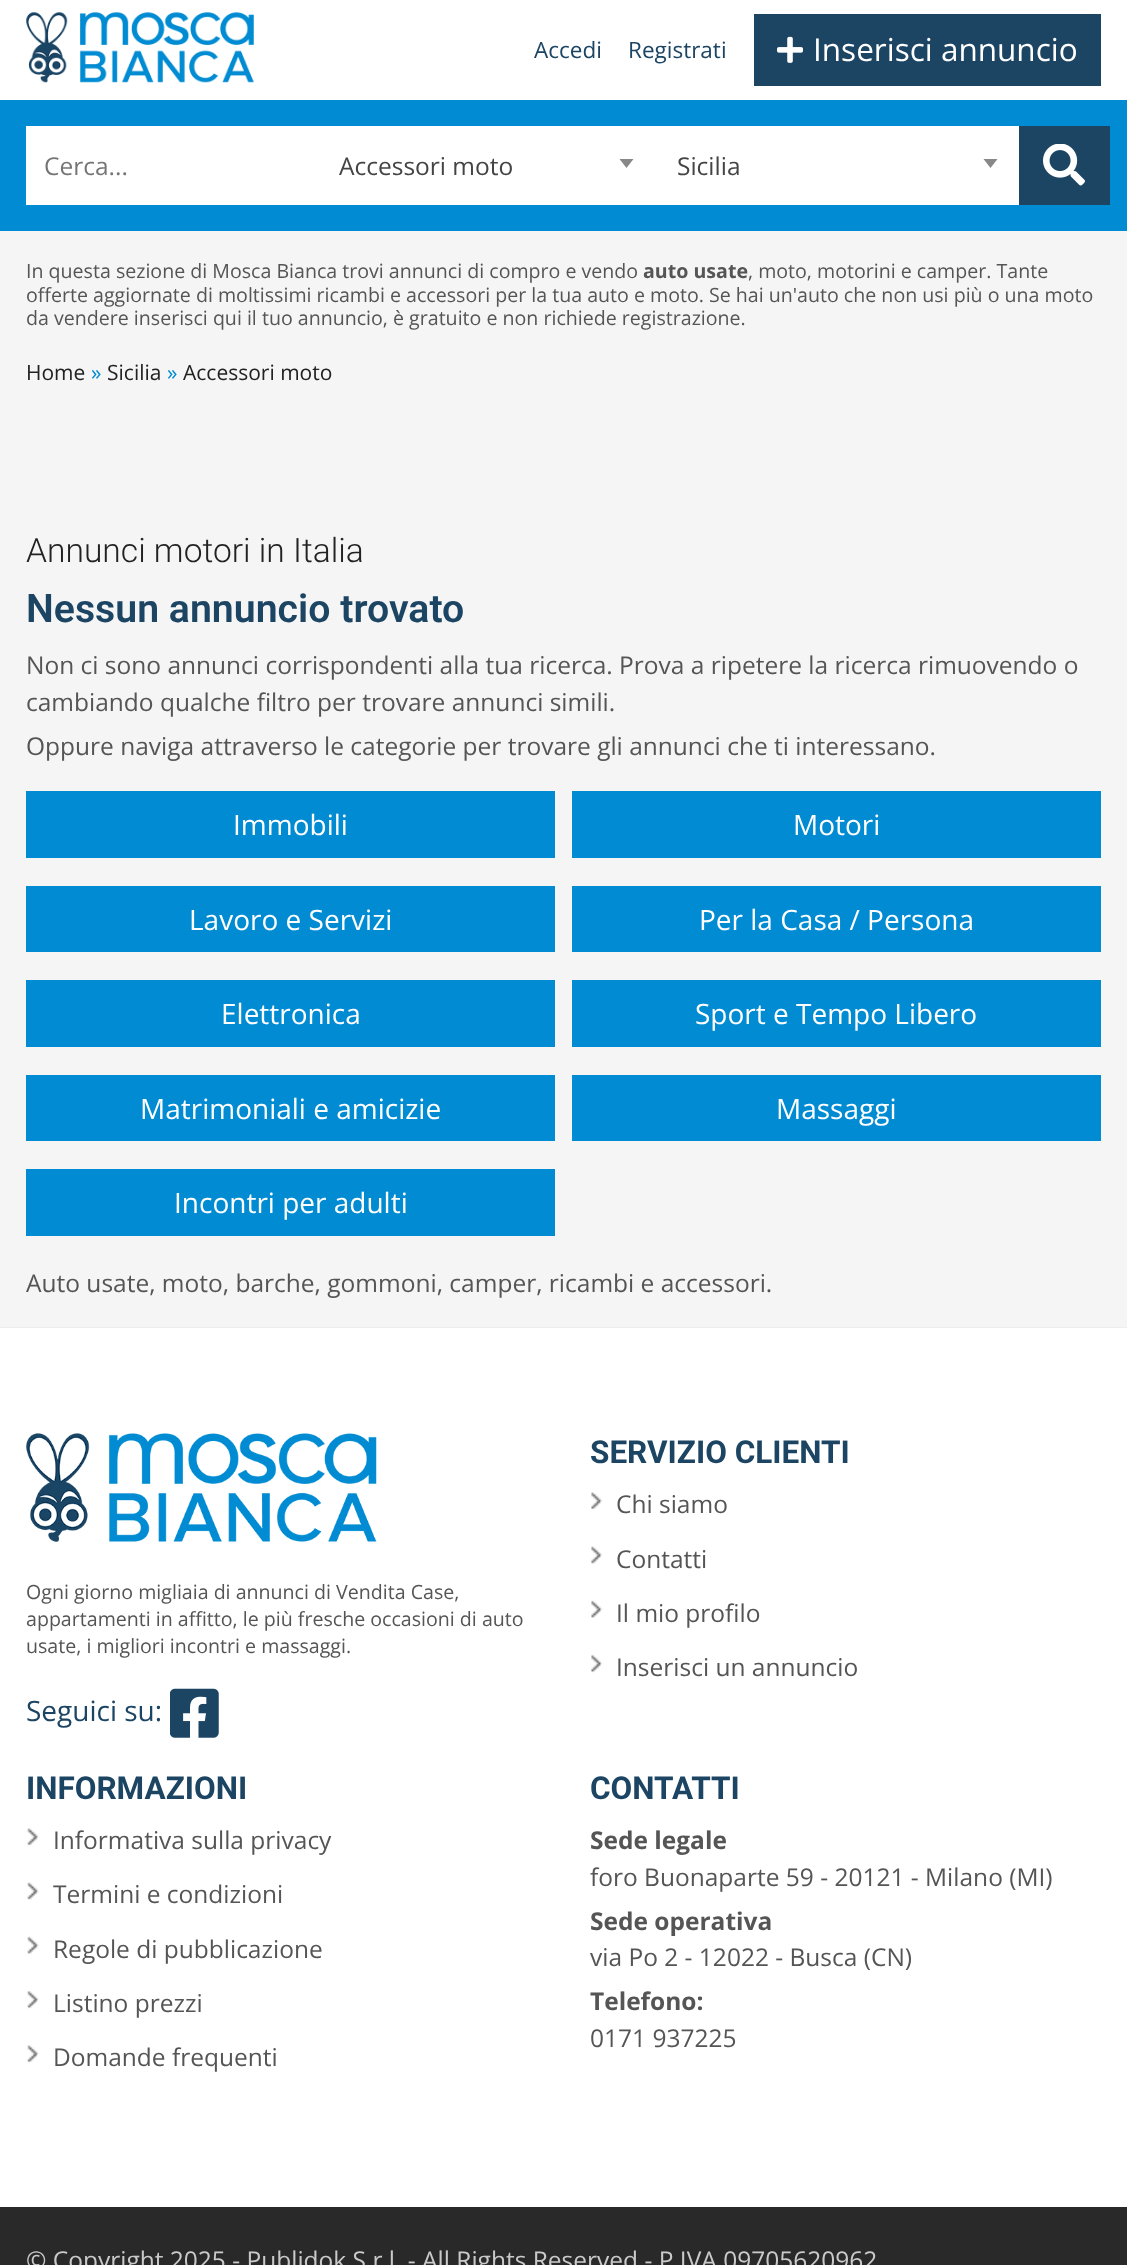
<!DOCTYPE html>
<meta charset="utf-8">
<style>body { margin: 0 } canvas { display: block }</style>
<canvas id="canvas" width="1127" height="2265"></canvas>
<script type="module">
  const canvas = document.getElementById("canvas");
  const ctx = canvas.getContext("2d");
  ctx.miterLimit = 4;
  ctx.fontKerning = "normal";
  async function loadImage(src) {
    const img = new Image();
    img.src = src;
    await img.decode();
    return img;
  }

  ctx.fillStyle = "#f5f5f5";
  ctx.fillRect(0, 0, 1127, 2265);
  ctx.fillStyle = "#ffffff";
  ctx.fillRect(0, 0, 1127, 100);
  ctx.drawImage(await loadImage("img1.png"), 26, 12, 228, 71);
  ctx.font = "22.5px Open Sans";
  ctx.fillStyle = "#1c4463";
  ctx.fillText("Accedi", 534, 58);
  ctx.fillText("Registrati", 628, 58);
  ctx.fillRect(754, 14, 347, 72);
  ctx.drawImage(await loadImage("img2.png"), 777, 36, 26, 27);
  ctx.font = "31.5px Open Sans";
  ctx.fillStyle = "#ffffff";
  ctx.fillText("Inserisci annuncio", 813, 61);
  ctx.fillStyle = "#008bd2";
  ctx.fillRect(0, 100, 1127, 131);
  ctx.fillStyle = "#ffffff";
  ctx.fillRect(26, 126, 993, 79);
  ctx.font = "24.5px Open Sans";
  ctx.fillStyle = "#757575";
  ctx.fillText("Cerca...", 44, 175);
  ctx.fillStyle = "#444444";
  ctx.fillText("Accessori moto", 339, 175);
  ctx.fillStyle = "#888888";
  ctx.beginPath();
  ctx.moveTo(619.5, 159);
  ctx.lineTo(633.5, 159);
  ctx.lineTo(626.5, 168);
  ctx.closePath();
  ctx.fill();
  ctx.fillStyle = "#444444";
  ctx.fillText("Sicilia", 677, 175);
  ctx.fillStyle = "#888888";
  ctx.beginPath();
  ctx.moveTo(983.5, 159);
  ctx.lineTo(997.5, 159);
  ctx.lineTo(990.5, 168);
  ctx.closePath();
  ctx.fill();
  ctx.fillStyle = "#1c4463";
  ctx.fillRect(1019, 126, 91, 79);
  ctx.drawImage(await loadImage("img3.png"), 1043, 144, 42, 42);
  ctx.font = "19.6px Open Sans";
  ctx.fillStyle = "#555555";
  ctx.fillText("In questa sezione di Mosca Bianca trovi annunci di compro e vendo", 26, 278);
  ctx.font = "bold 19.6px Open Sans";
  ctx.fillText("auto usate", 643, 278);
  ctx.font = "19.6px Open Sans";
  ctx.fillText(", moto, motorini e camper. Tante", 748, 278);
  ctx.fillText("offerte aggiornate di moltissimi ricambi e accessori per la tua auto e moto. Se hai un'auto che non usi più o una moto", 26, 302);
  ctx.fillText("da vendere inserisci qui il tuo annuncio, è gratuito e non richiede registrazione.", 26, 325);
  ctx.font = "21px Open Sans";
  ctx.fillStyle = "#222222";
  ctx.fillText("Home", 26, 380);
  ctx.fillStyle = "#008bd2";
  ctx.fillText("»", 91, 380);
  ctx.fillStyle = "#222222";
  ctx.fillText("Sicilia", 107, 380);
  ctx.fillStyle = "#008bd2";
  ctx.fillText("»", 167, 380);
  ctx.fillStyle = "#222222";
  ctx.fillText("Accessori moto", 183, 380);
  ctx.font = "300 33.6px Roboto";
  ctx.fillText("Annunci motori in Italia", 26, 562);
  ctx.font = "600 39.25px Roboto";
  ctx.fillStyle = "#1c4463";
  ctx.fillText("Nessun annuncio trovato", 26, 622);
  ctx.font = "24.5px Open Sans";
  ctx.fillStyle = "#555555";
  ctx.fillText("Non ci sono annunci corrispondenti alla tua ricerca. Prova a ripetere la ricerca rimuovendo o", 26, 674);
  ctx.fillText("cambiando qualche filtro per trovare annunci simili.", 26, 711);
  ctx.fillText("Oppure naviga attraverso le categorie per trovare gli annunci che ti interessano.", 26, 755);
  ctx.fillStyle = "#008bd2";
  ctx.fillRect(26, 791, 529, 67);
  ctx.font = "28px Open Sans";
  ctx.fillStyle = "#ffffff";
  ctx.fillText("Immobili", 233, 835);
  ctx.fillStyle = "#008bd2";
  ctx.fillRect(572, 791, 529, 67);
  ctx.fillStyle = "#ffffff";
  ctx.fillText("Motori", 793, 835);
  ctx.fillStyle = "#008bd2";
  ctx.fillRect(26, 886, 529, 66);
  ctx.fillStyle = "#ffffff";
  ctx.fillText("Lavoro e Servizi", 189, 930);
  ctx.fillStyle = "#008bd2";
  ctx.fillRect(572, 886, 529, 66);
  ctx.fillStyle = "#ffffff";
  ctx.fillText("Per la Casa / Persona", 699, 930);
  ctx.fillStyle = "#008bd2";
  ctx.fillRect(26, 980, 529, 67);
  ctx.fillStyle = "#ffffff";
  ctx.fillText("Elettronica", 221, 1024);
  ctx.fillStyle = "#008bd2";
  ctx.fillRect(572, 980, 529, 67);
  ctx.fillStyle = "#ffffff";
  ctx.fillText("Sport e Tempo Libero", 695, 1024);
  ctx.fillStyle = "#008bd2";
  ctx.fillRect(26, 1075, 529, 66);
  ctx.fillStyle = "#ffffff";
  ctx.fillText("Matrimoniali e amicizie", 140, 1119);
  ctx.fillStyle = "#008bd2";
  ctx.fillRect(572, 1075, 529, 66);
  ctx.fillStyle = "#ffffff";
  ctx.fillText("Massaggi", 776, 1119);
  ctx.fillStyle = "#008bd2";
  ctx.fillRect(26, 1169, 529, 67);
  ctx.fillStyle = "#ffffff";
  ctx.fillText("Incontri per adulti", 174, 1213);
  ctx.font = "24.5px Open Sans";
  ctx.fillStyle = "#555555";
  ctx.fillText("Auto usate, moto, barche, gommoni, camper, ricambi e accessori.", 26, 1292);
  ctx.fillStyle = "#ededed";
  ctx.fillRect(0, 1327, 1127, 1);
  ctx.fillStyle = "#ffffff";
  ctx.fillRect(0, 1328, 1127, 879);
  ctx.drawImage(await loadImage("img4.png"), 26, 1433, 351, 109);
  ctx.font = "19.6px Open Sans";
  ctx.fillStyle = "#555555";
  ctx.fillText("Ogni giorno migliaia di annunci di Vendita Case,", 26, 1599);
  ctx.fillText("appartamenti in affitto, le più fresche occasioni di auto", 26, 1626);
  ctx.fillText("usate, i migliori incontri e massaggi.", 26, 1653);
  ctx.font = "28px Open Sans";
  ctx.fillStyle = "#1c4463";
  ctx.fillText("Seguici su:", 26, 1721);
  ctx.drawImage(await loadImage("img5.png"), 170, 1688, 49, 50);
  ctx.font = "bold 31.5px Roboto";
  ctx.fillText("SERVIZIO CLIENTI", 590, 1463);
  ctx.drawImage(await loadImage("img6.png"), 591, 1492, 12, 18);
  ctx.font = "24.5px Open Sans";
  ctx.fillStyle = "#555555";
  ctx.fillText("Chi siamo", 616, 1513);
  ctx.drawImage(await loadImage("img7.png"), 591, 1546, 12, 19);
  ctx.fillText("Contatti", 616, 1568);
  ctx.drawImage(await loadImage("img8.png"), 591, 1600, 12, 19);
  ctx.fillText("Il mio profilo", 616, 1622);
  ctx.drawImage(await loadImage("img9.png"), 591, 1655, 12, 18);
  ctx.fillText("Inserisci un annuncio", 616, 1676);
  ctx.font = "bold 31.5px Roboto";
  ctx.fillStyle = "#1c4463";
  ctx.fillText("INFORMAZIONI", 26, 1799);
  ctx.drawImage(await loadImage("img10.png"), 27, 1828, 12, 18);
  ctx.font = "24.5px Open Sans";
  ctx.fillStyle = "#555555";
  ctx.fillText("Informativa sulla privacy", 53, 1849);
  ctx.drawImage(await loadImage("img11.png"), 27, 1882, 12, 18);
  ctx.fillText("Termini e condizioni", 53, 1903);
  ctx.drawImage(await loadImage("img12.png"), 27, 1936, 12, 19);
  ctx.fillText("Regole di pubblicazione", 53, 1958);
  ctx.drawImage(await loadImage("img13.png"), 27, 1991, 12, 18);
  ctx.fillText("Listino prezzi", 53, 2012);
  ctx.drawImage(await loadImage("img14.png"), 27, 2045, 12, 18);
  ctx.fillText("Domande frequenti", 53, 2066);
  ctx.font = "bold 31.5px Roboto";
  ctx.fillStyle = "#1c4463";
  ctx.fillText("CONTATTI", 590, 1799);
  ctx.font = "bold 24.5px Open Sans";
  ctx.fillStyle = "#555555";
  ctx.fillText("Sede legale", 590, 1849);
  ctx.font = "24.5px Open Sans";
  ctx.fillText("foro Buonaparte 59 - 20121 - Milano (MI)", 590, 1886);
  ctx.font = "bold 24.5px Open Sans";
  ctx.fillText("Sede operativa", 590, 1930);
  ctx.font = "24.5px Open Sans";
  ctx.fillText("via Po 2 - 12022 - Busca (CN)", 590, 1966);
  ctx.font = "bold 24.5px Open Sans";
  ctx.fillText("Telefono:", 590, 2010);
  ctx.font = "24.5px Open Sans";
  ctx.fillText("0171 937225", 590, 2047);
  ctx.fillStyle = "#292929";
  ctx.fillRect(0, 2207, 1127, 58);
  ctx.fillStyle = "#cacaca";
  ctx.fillText("© Copyright 2025 - Publidok S.r.l. - All Rights Reserved - P.IVA 09705620962", 26, 2269);
</script>
